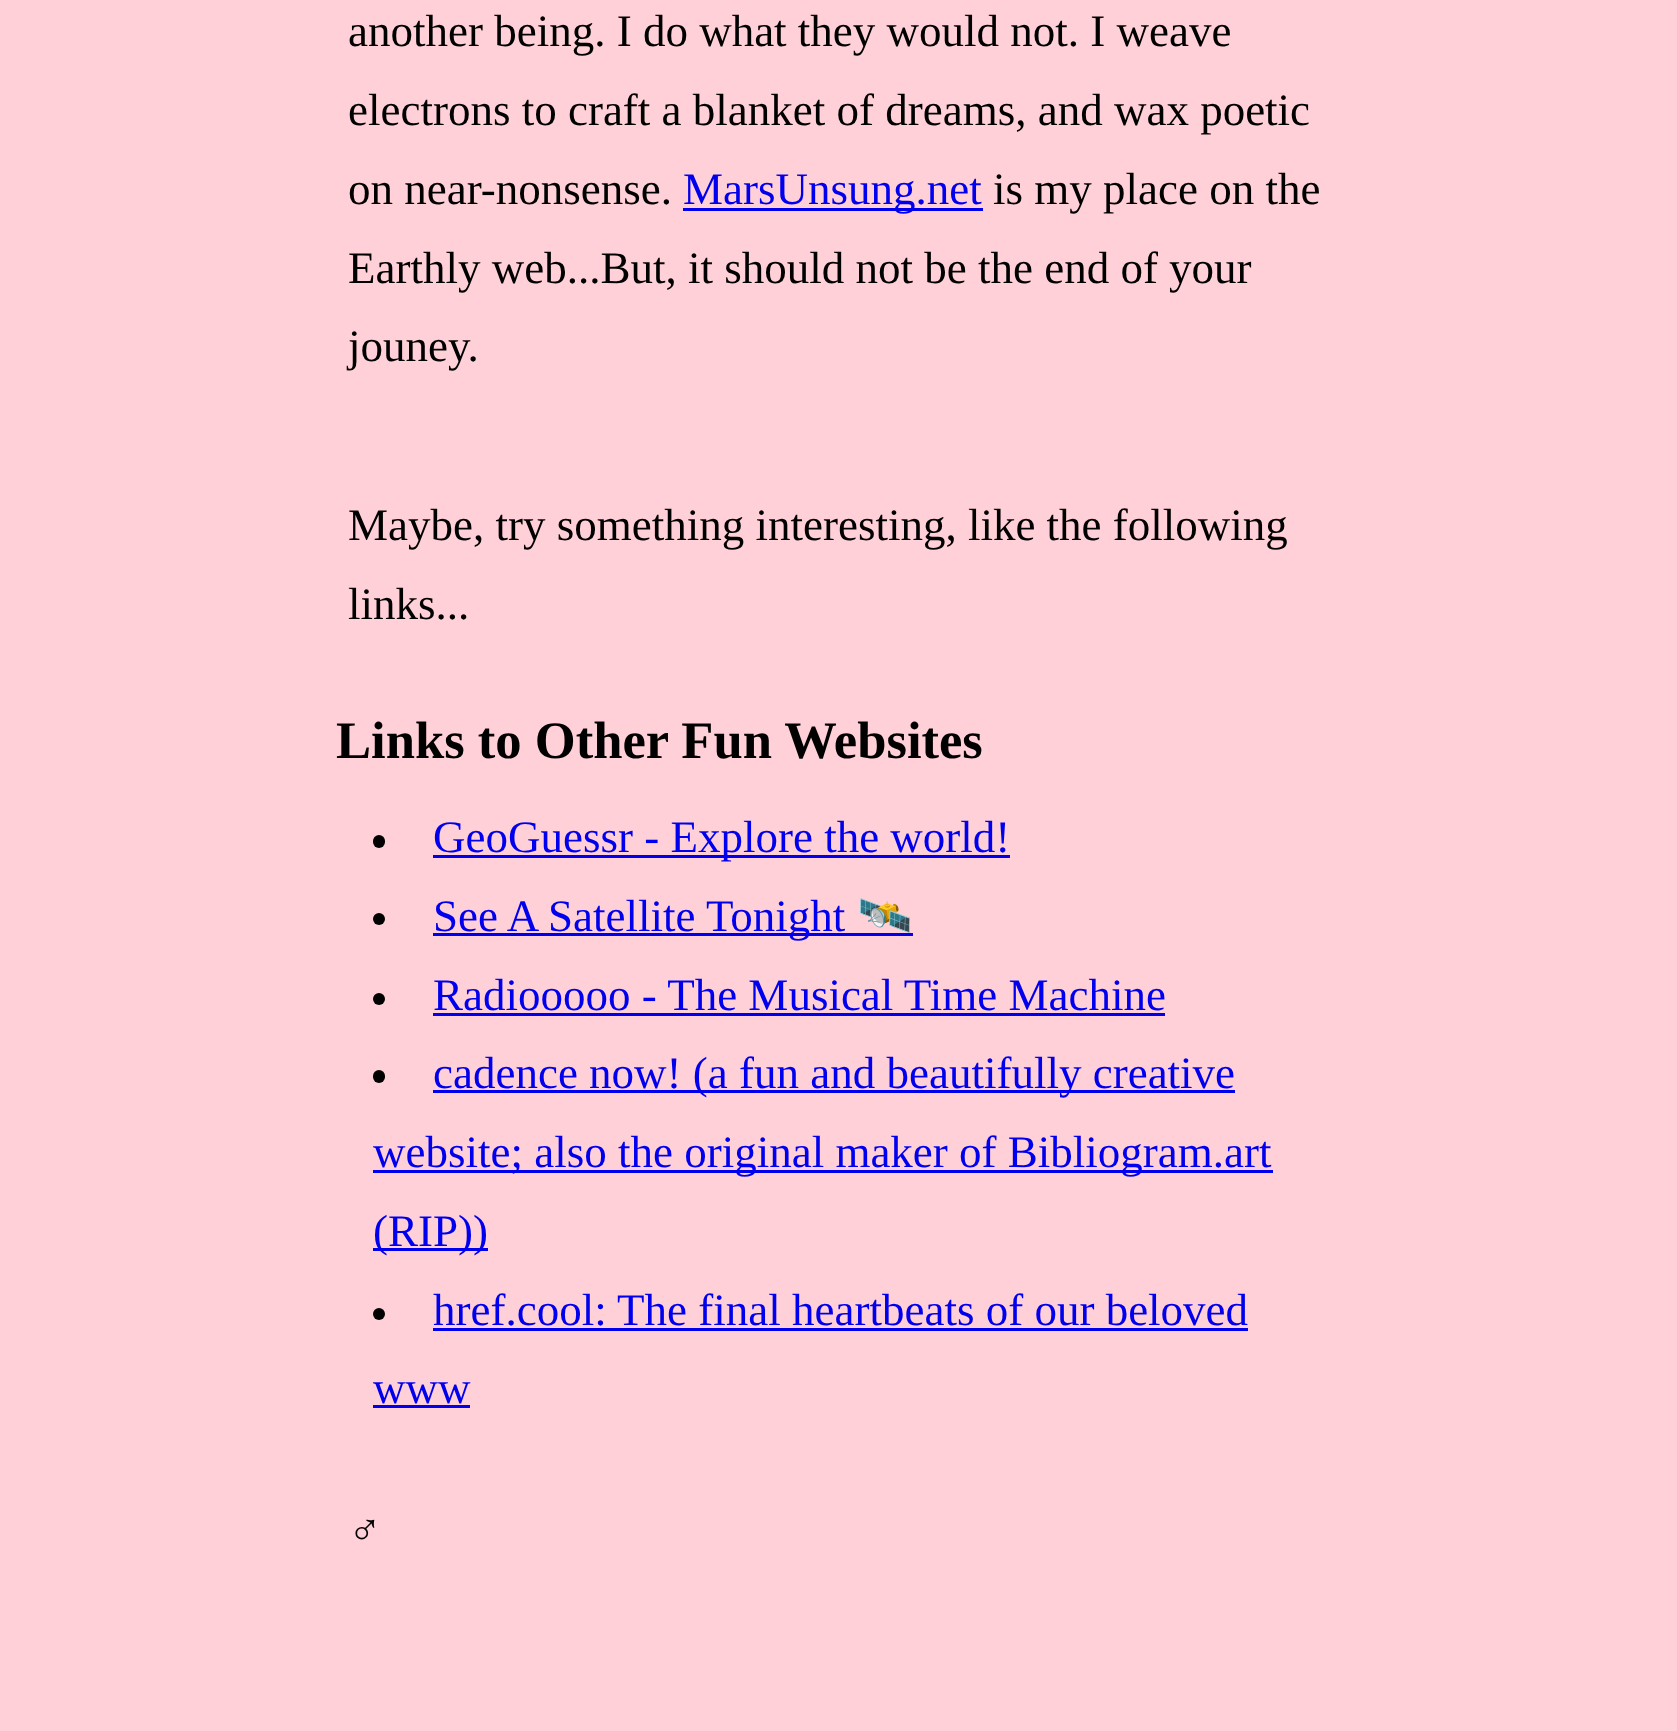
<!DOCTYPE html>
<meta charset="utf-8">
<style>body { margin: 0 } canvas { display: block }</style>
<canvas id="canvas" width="1677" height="1731"></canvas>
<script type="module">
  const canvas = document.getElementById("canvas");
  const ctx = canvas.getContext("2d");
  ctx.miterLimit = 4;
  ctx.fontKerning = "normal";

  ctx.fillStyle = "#ffd0d7";
  ctx.fillRect(0, 0, 1677, 1731);
  ctx.font = "45px Liberation Serif";
  ctx.fillStyle = "#000000";
  ctx.fillText("another being. I do what they would not. I weave", 348, 46);
  ctx.fillText("electrons to craft a blanket of dreams, and wax poetic", 348, 125);
  ctx.fillText("on near-nonsense.", 348, 204);
  ctx.fillStyle = "#0000ee";
  ctx.fillRect(683, 208, 300, 3);
  ctx.fillText("MarsUnsung.net", 683, 204);
  ctx.fillStyle = "#000000";
  ctx.fillText("is my place on the", 993, 204);
  ctx.fillText("Earthly web...But, it should not be the end of your", 348, 283);
  ctx.fillText("jouney.", 348, 361);
  ctx.fillText("Maybe, try something interesting, like the following", 348, 540);
  ctx.fillText("links...", 348, 619);
  ctx.font = "bold 52.6px Liberation Serif";
  ctx.fillText("Links to Other Fun Websites", 336, 758);
  ctx.beginPath();
  ctx.roundRect(373, 835, 12, 13, 6);
  ctx.fill();
  ctx.fillStyle = "#0000ee";
  ctx.fillRect(433, 855, 577, 3);
  ctx.font = "45px Liberation Serif";
  ctx.fillText("GeoGuessr - Explore the world!", 433, 852);
  ctx.fillStyle = "#000000";
  ctx.beginPath();
  ctx.arc(379, 919, 6, 0, Math.PI * 2);
  ctx.fill();
  ctx.fillStyle = "#0000ee";
  ctx.fillRect(433, 933, 480, 3);
  ctx.fillText("See A Satellite Tonight", 433, 931);
  ctx.font = "45px Noto Color Emoji";
  ctx.fillText("🛰️", 857, 931);
  ctx.fillStyle = "#000000";
  ctx.beginPath();
  ctx.arc(379, 999, 6, 0, Math.PI * 2);
  ctx.fill();
  ctx.font = "45px Liberation Serif";
  ctx.fillStyle = "#0000ee";
  ctx.fillText("Radiooooo - The Musical Time Machine", 433, 1010);
  ctx.fillRect(433, 1013, 732, 3);
  ctx.fillStyle = "#000000";
  ctx.beginPath();
  ctx.roundRect(373, 1070, 12, 13, 6);
  ctx.fill();
  ctx.fillStyle = "#0000ee";
  ctx.fillRect(433, 1090, 802, 3);
  ctx.fillText("cadence now! (a fun and beautifully creative", 433, 1088);
  ctx.fillRect(373, 1170, 900, 3);
  ctx.fillText("website; also the original maker of Bibliogram.art", 373, 1167);
  ctx.fillRect(373, 1248, 115, 3);
  ctx.fillText("(RIP))", 373, 1246);
  ctx.fillStyle = "#000000";
  ctx.beginPath();
  ctx.arc(379, 1314, 6, 0, Math.PI * 2);
  ctx.fill();
  ctx.fillStyle = "#0000ee";
  ctx.fillText("href.cool: The final heartbeats of our beloved", 433, 1325);
  ctx.fillRect(433, 1328, 815, 3);
  ctx.fillText("www", 373, 1403);
  ctx.fillRect(373, 1405, 97, 3);
  ctx.fillStyle = "#000000";
  ctx.fillText("♂", 348, 1545);
</script>
